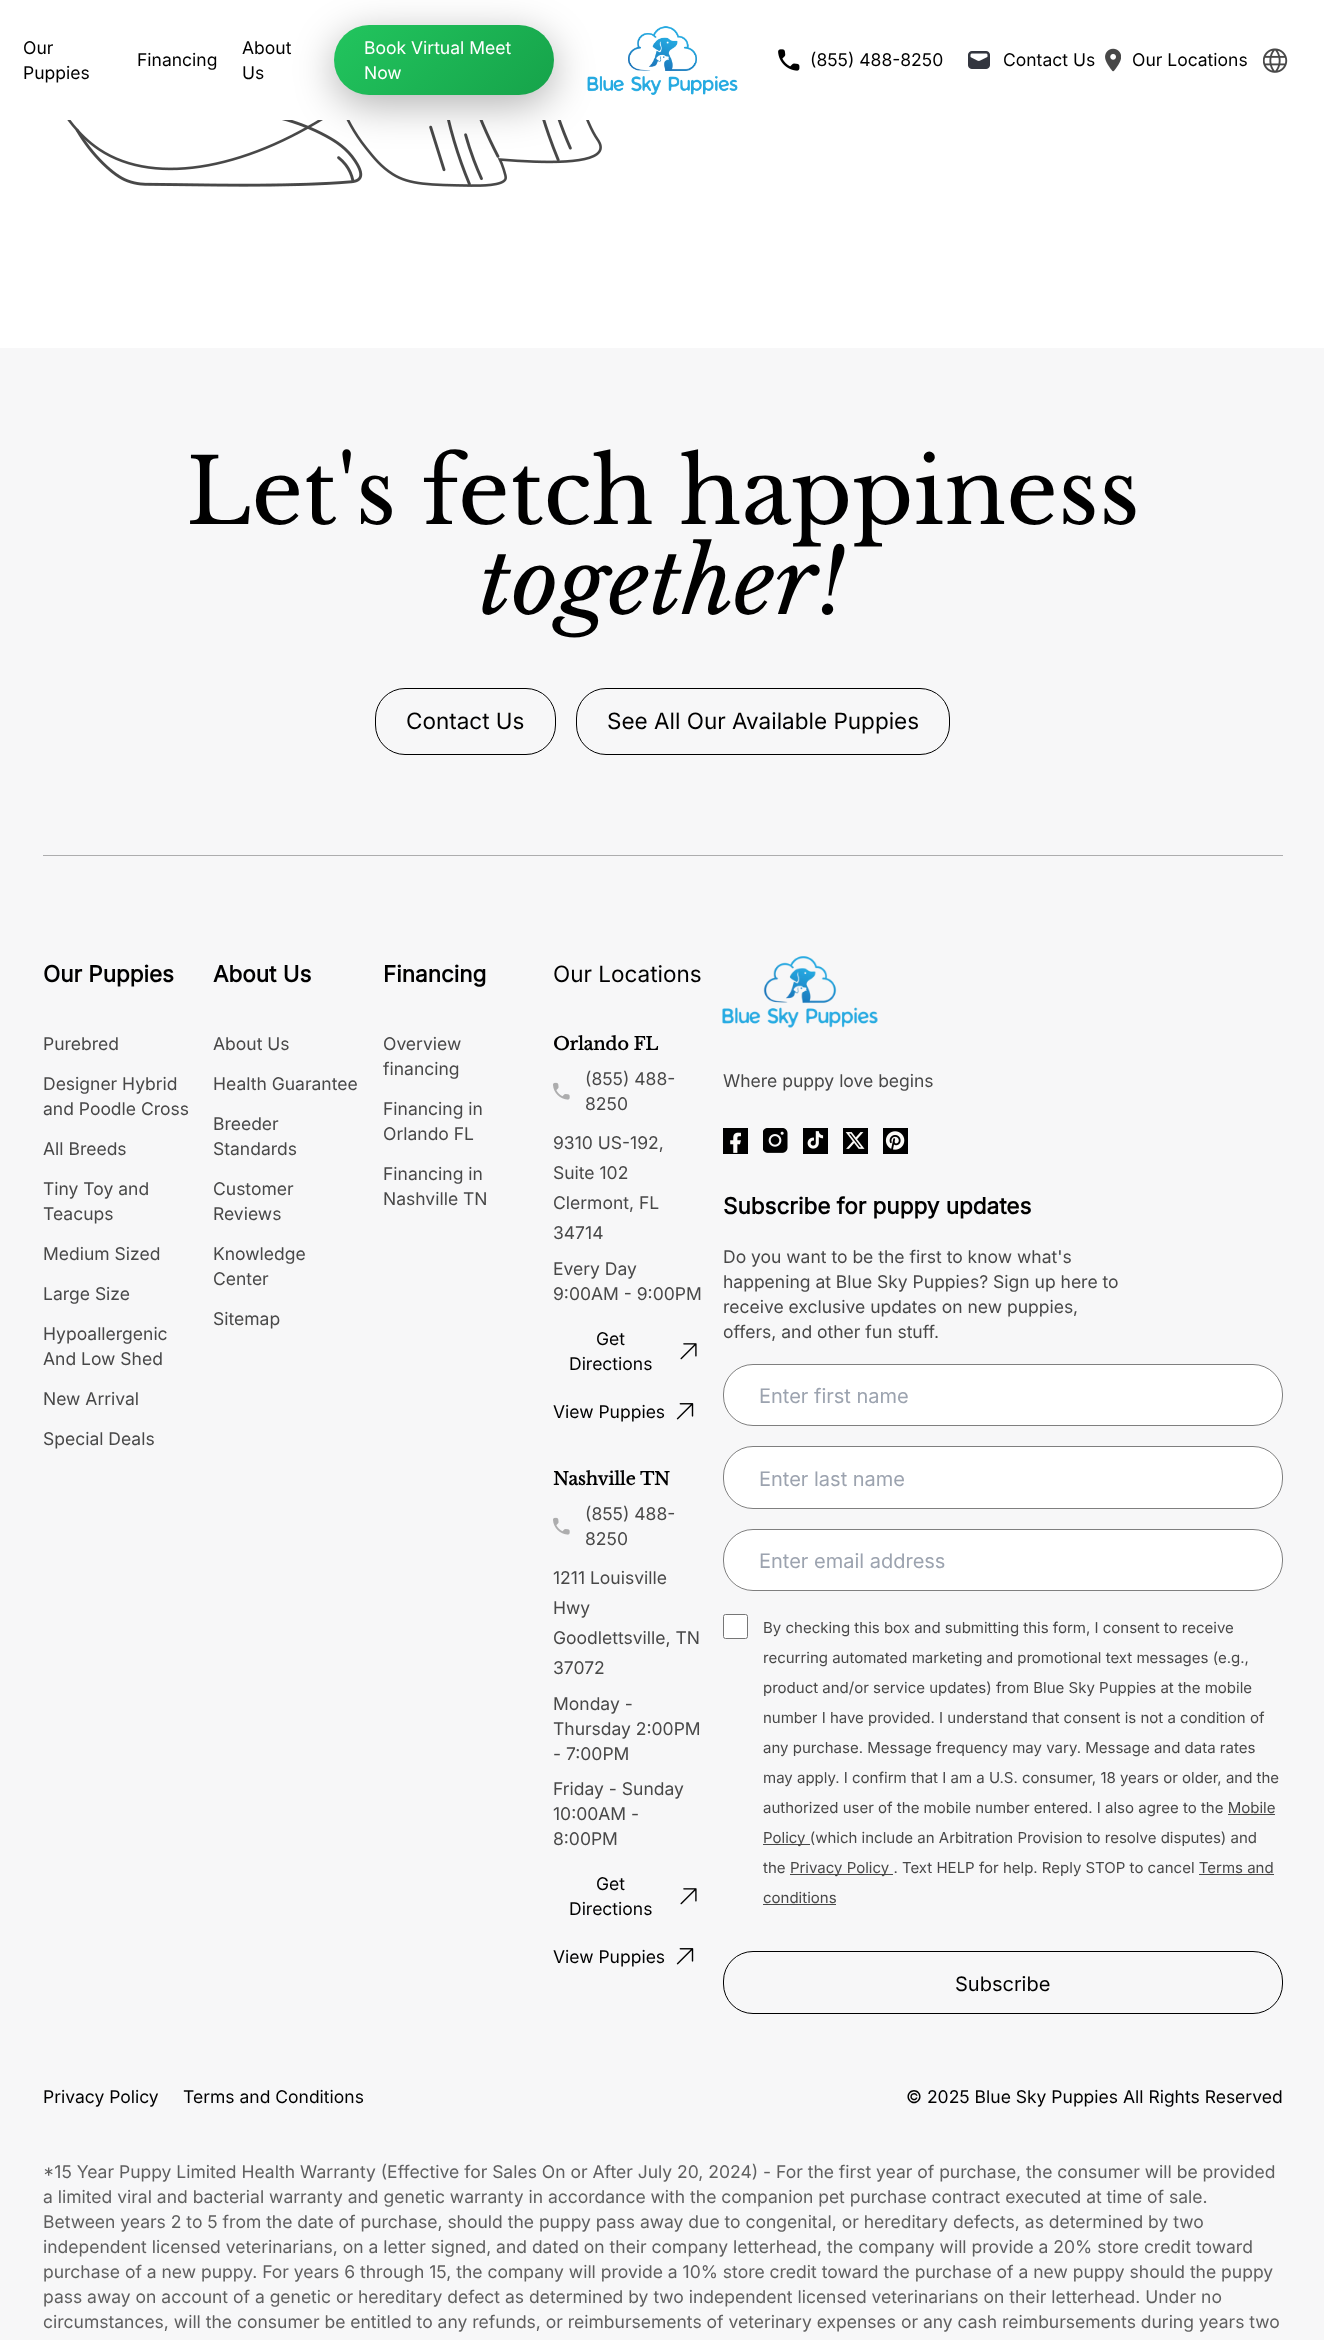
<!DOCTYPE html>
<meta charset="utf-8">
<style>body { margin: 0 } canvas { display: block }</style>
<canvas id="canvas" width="1324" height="2340"></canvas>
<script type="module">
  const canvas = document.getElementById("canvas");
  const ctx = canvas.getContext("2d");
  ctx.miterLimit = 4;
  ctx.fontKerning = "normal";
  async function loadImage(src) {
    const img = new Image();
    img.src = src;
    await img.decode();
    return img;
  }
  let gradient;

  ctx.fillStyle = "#ffffff";
  ctx.fillRect(0, 0, 1324, 2340);
  ctx.font = "17.5px Inter";
  ctx.fillStyle = "#000000";
  ctx.fillText("Our", 23, 54);
  ctx.fillText("Puppies", 23, 79);
  ctx.fillText("Financing", 137, 66);
  ctx.fillText("About", 242, 54);
  ctx.fillText("Us", 242, 79);
  ctx.drawImage(await loadImage("img1.png"), 587, 26, 151, 69);
  ctx.drawImage(await loadImage("img6.png"), 67, 120, 535, 67);
  ctx.fillStyle = "rgba(0, 0, 0, 0.3)";
  ctx.filter = "blur(20px)";
  ctx.beginPath();
  ctx.roundRect(334, 35, 220, 70, 35);
  ctx.fill();
  ctx.filter = "none";
  gradient = ctx.createLinearGradient(371, -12, 516, 133);
  gradient.addColorStop(0, "#22c55e");
  gradient.addColorStop(1, "#16a34a");
  ctx.fillStyle = gradient;
  ctx.beginPath();
  ctx.roundRect(334, 25, 220, 70, 35);
  ctx.fill();
  ctx.fillStyle = "#ffffff";
  ctx.fillText("Book Virtual Meet", 364, 54);
  ctx.fillText("Now", 364, 79);
  ctx.drawImage(await loadImage("img2.png"), 778, 49, 22, 22);
  ctx.fillStyle = "#000000";
  ctx.fillText("(855) 488-8250", 810, 66);
  ctx.drawImage(await loadImage("img3.png"), 968, 51, 22, 18);
  ctx.fillText("Contact Us", 1003, 66);
  ctx.drawImage(await loadImage("img4.png"), 1105, 48, 16, 24);
  ctx.fillText("Our Locations", 1132, 66);
  ctx.drawImage(await loadImage("img5.png"), 1263, 48, 25, 25);
  ctx.fillStyle = "#f7f7f8";
  ctx.fillRect(0, 348, 1324, 1992);
  ctx.font = "90px Libre Baskerville";
  ctx.fillStyle = "#000000";
  ctx.fillText("Let's fetch happiness", 186, 524);
  ctx.font = "italic 90px Libre Baskerville";
  ctx.fillText("together!", 479, 614);
  ctx.beginPath();
  ctx.roundRect(375.5, 688.5, 180, 66, 29.5);
  ctx.strokeStyle = "#000000";
  ctx.stroke();
  ctx.font = "22.5px Inter";
  ctx.fillText("Contact Us", 406, 729);
  ctx.beginPath();
  ctx.roundRect(576.5, 688.5, 373, 66, 29.5);
  ctx.stroke();
  ctx.fillText("See All Our Available Puppies", 607, 729);
  ctx.fillStyle = "#adadae";
  ctx.fillRect(43, 855, 1240, 1);
  ctx.font = "bold 22.5px Inter";
  ctx.fillStyle = "#000000";
  ctx.fillText("Our Puppies", 43, 982);
  ctx.font = "17.5px Inter";
  ctx.fillStyle = "#484848";
  ctx.fillText("Purebred", 43, 1050);
  ctx.fillText("Designer Hybrid", 43, 1090);
  ctx.fillText("and Poodle Cross", 43, 1115);
  ctx.fillText("All Breeds", 43, 1155);
  ctx.fillText("Tiny Toy and", 43, 1195);
  ctx.fillText("Teacups", 43, 1220);
  ctx.fillText("Medium Sized", 43, 1260);
  ctx.fillText("Large Size", 43, 1300);
  ctx.fillText("Hypoallergenic", 43, 1340);
  ctx.fillText("And Low Shed", 43, 1365);
  ctx.fillText("New Arrival", 43, 1405);
  ctx.fillText("Special Deals", 43, 1445);
  ctx.font = "bold 22.5px Inter";
  ctx.fillStyle = "#000000";
  ctx.fillText("About Us", 213, 982);
  ctx.font = "17.5px Inter";
  ctx.fillStyle = "#484848";
  ctx.fillText("About Us", 213, 1050);
  ctx.fillText("Health Guarantee", 213, 1090);
  ctx.fillText("Breeder", 213, 1130);
  ctx.fillText("Standards", 213, 1155);
  ctx.fillText("Customer", 213, 1195);
  ctx.fillText("Reviews", 213, 1220);
  ctx.fillText("Knowledge", 213, 1260);
  ctx.fillText("Center", 213, 1285);
  ctx.fillText("Sitemap", 213, 1325);
  ctx.font = "bold 22.5px Inter";
  ctx.fillStyle = "#000000";
  ctx.fillText("Financing", 383, 982);
  ctx.font = "17.5px Inter";
  ctx.fillStyle = "#484848";
  ctx.fillText("Overview", 383, 1050);
  ctx.fillText("financing", 383, 1075);
  ctx.fillText("Financing in", 383, 1115);
  ctx.fillText("Orlando FL", 383, 1140);
  ctx.fillText("Financing in", 383, 1180);
  ctx.fillText("Nashville TN", 383, 1205);
  ctx.font = "22.5px Inter";
  ctx.fillStyle = "#000000";
  ctx.fillText("Our Locations", 553, 982);
  ctx.font = "bold 17.5px Libre Baskerville";
  ctx.fillText("Orlando FL", 553, 1050);
  ctx.drawImage(await loadImage("img7.png"), 553, 1082, 17, 18);
  ctx.font = "17.5px Inter";
  ctx.fillStyle = "#484848";
  ctx.fillText("(855) 488-", 585, 1085);
  ctx.fillText("8250", 585, 1110);
  ctx.fillText("9310 US-192,", 553, 1149);
  ctx.fillText("Suite 102", 553, 1179);
  ctx.fillText("Clermont, FL", 553, 1209);
  ctx.fillText("34714", 553, 1239);
  ctx.fillText("Every Day", 553, 1275);
  ctx.fillText("9:00AM - 9:00PM", 553, 1300);
  ctx.fillStyle = "#000000";
  ctx.fillText("Get", 596, 1345);
  ctx.drawImage(await loadImage("img8.png"), 680, 1343, 17, 17);
  ctx.fillText("Directions", 569, 1370);
  ctx.fillText("View Puppies", 553, 1418);
  ctx.drawImage(await loadImage("img9.png"), 676, 1403, 18, 17);
  ctx.font = "bold 17.5px Libre Baskerville";
  ctx.fillText("Nashville TN", 553, 1485);
  ctx.drawImage(await loadImage("img7.png"), 553, 1517, 17, 18);
  ctx.font = "17.5px Inter";
  ctx.fillStyle = "#484848";
  ctx.fillText("(855) 488-", 585, 1520);
  ctx.fillText("8250", 585, 1545);
  ctx.fillText("1211 Louisville", 553, 1584);
  ctx.fillText("Hwy", 553, 1614);
  ctx.fillText("Goodlettsville, TN", 553, 1644);
  ctx.fillText("37072", 553, 1674);
  ctx.fillText("Monday -", 553, 1710);
  ctx.fillText("Thursday 2:00PM", 553, 1735);
  ctx.fillText("- 7:00PM", 553, 1760);
  ctx.fillText("Friday - Sunday", 553, 1795);
  ctx.fillText("10:00AM -", 553, 1820);
  ctx.fillText("8:00PM", 553, 1845);
  ctx.fillStyle = "#000000";
  ctx.fillText("Get", 596, 1890);
  ctx.drawImage(await loadImage("img8.png"), 680, 1888, 17, 17);
  ctx.fillText("Directions", 569, 1915);
  ctx.fillText("View Puppies", 553, 1963);
  ctx.drawImage(await loadImage("img9.png"), 676, 1948, 18, 17);
  ctx.drawImage(await loadImage("img10.png"), 722, 956, 156, 72);
  ctx.fillStyle = "#484848";
  ctx.fillText("Where puppy love begins", 723, 1087);
  ctx.drawImage(await loadImage("img11.png"), 723, 1128, 25, 26);
  ctx.drawImage(await loadImage("img12.png"), 763, 1128, 25, 25);
  ctx.drawImage(await loadImage("img13.png"), 803, 1128, 25, 26);
  ctx.drawImage(await loadImage("img14.png"), 843, 1128, 25, 26);
  ctx.drawImage(await loadImage("img15.png"), 883, 1128, 25, 26);
  ctx.font = "bold 22.5px Inter";
  ctx.fillStyle = "#000000";
  ctx.fillText("Subscribe for puppy updates", 723, 1214);
  ctx.font = "17.5px Inter";
  ctx.fillStyle = "#484848";
  ctx.fillText("Do you want to be the first to know what's", 723, 1263);
  ctx.fillText("happening at Blue Sky Puppies? Sign up here to", 723, 1288);
  ctx.fillText("receive exclusive updates on new puppies,", 723, 1313);
  ctx.fillText("offers, and other fun stuff.", 723, 1338);
  ctx.fillStyle = "#ffffff";
  ctx.beginPath();
  ctx.roundRect(723, 1364, 560, 62, 30);
  ctx.fill();
  ctx.beginPath();
  ctx.roundRect(723.5, 1364.5, 559, 61, 29.5);
  ctx.strokeStyle = "rgba(0, 0, 0, 0.5)";
  ctx.stroke();
  ctx.font = "20px Inter";
  ctx.fillStyle = "#9ca3af";
  ctx.fillText("Enter first name", 759, 1403);
  ctx.fillStyle = "#ffffff";
  ctx.beginPath();
  ctx.roundRect(723, 1446, 560, 63, 30);
  ctx.fill();
  ctx.beginPath();
  ctx.roundRect(723.5, 1446.5, 559, 62, 29.5);
  ctx.stroke();
  ctx.fillStyle = "#9ca3af";
  ctx.fillText("Enter last name", 759, 1486);
  ctx.fillStyle = "#ffffff";
  ctx.beginPath();
  ctx.roundRect(723, 1529, 560, 62, 30);
  ctx.fill();
  ctx.beginPath();
  ctx.roundRect(723.5, 1529.5, 559, 61, 29.5);
  ctx.stroke();
  ctx.fillStyle = "#9ca3af";
  ctx.fillText("Enter email address", 759, 1568);
  ctx.fillStyle = "#ffffff";
  ctx.beginPath();
  ctx.roundRect(723.5, 1614.5, 24, 24, 2);
  ctx.fill();
  ctx.strokeStyle = "#767676";
  ctx.stroke();
  ctx.font = "15px Inter";
  ctx.fillStyle = "#484848";
  ctx.fillText("By checking this box and submitting this form, I consent to receive", 763, 1633);
  ctx.fillText("recurring automated marketing and promotional text messages (e.g.,", 763, 1663);
  ctx.fillText("product and/or service updates) from Blue Sky Puppies at the mobile", 763, 1693);
  ctx.fillText("number I have provided. I understand that consent is not a condition of", 763, 1723);
  ctx.fillText("any purchase. Message frequency may vary. Message and data rates", 763, 1753);
  ctx.fillText("may apply. I confirm that I am a U.S. consumer, 18 years or older, and the", 763, 1783);
  ctx.fillText("authorized user of the mobile number entered. I also agree to the Mobile", 763, 1813);
  ctx.fillRect(1228, 1814, 47, 1);
  ctx.fillRect(763, 1844, 47, 1);
  ctx.fillText("Policy (which include an Arbitration Provision to resolve disputes) and", 763, 1843);
  ctx.fillText("the", 763, 1873);
  ctx.fillRect(790, 1874, 103, 1);
  ctx.fillText("Privacy Policy . Text HELP for help. Reply STOP to cancel Terms and", 790, 1873);
  ctx.fillRect(1199, 1874, 75, 1);
  ctx.fillText("conditions", 763, 1903);
  ctx.fillRect(763, 1904, 73, 1);
  ctx.beginPath();
  ctx.roundRect(723.5, 1951.5, 559, 62, 29.5);
  ctx.strokeStyle = "#000000";
  ctx.stroke();
  ctx.font = "20px Inter";
  ctx.fillStyle = "#000000";
  ctx.fillText("Subscribe", 955, 1991);
  ctx.font = "17.5px Inter";
  ctx.fillText("Privacy Policy", 43, 2103);
  ctx.fillText("Terms and Conditions", 183, 2103);
  ctx.fillText("© 2025 Blue Sky Puppies All Rights Reserved", 906, 2103);
  ctx.fillStyle = "#5f5f5f";
  ctx.fillText("*15 Year Puppy Limited Health Warranty (Effective for Sales On or After July 20, 2024) - For the first year of purchase, the consumer will be provided", 43, 2178);
  ctx.fillText("a limited viral and bacterial warranty and genetic warranty in accordance with the companion pet purchase contract executed at time of sale.", 43, 2203);
  ctx.fillText("Between years 2 to 5 from the date of purchase, should the puppy pass away due to congenital, or hereditary defects, as determined by two", 43, 2228);
  ctx.fillText("independent licensed veterinarians, on a letter signed, and dated on their company letterhead, the company will provide a 20% store credit toward", 43, 2253);
  ctx.fillText("purchase of a new puppy. For years 6 through 15, the company will provide a 10% store credit toward the purchase of a new puppy should the puppy", 43, 2278);
  ctx.fillText("pass away on account of a genetic or hereditary defect as determined by two independent licensed veterinarians on their letterhead. Under no", 43, 2303);
  ctx.fillText("circumstances, will the consumer be entitled to any refunds, or reimbursements of veterinary expenses or any cash reimbursements during years two", 43, 2328);
</script>
